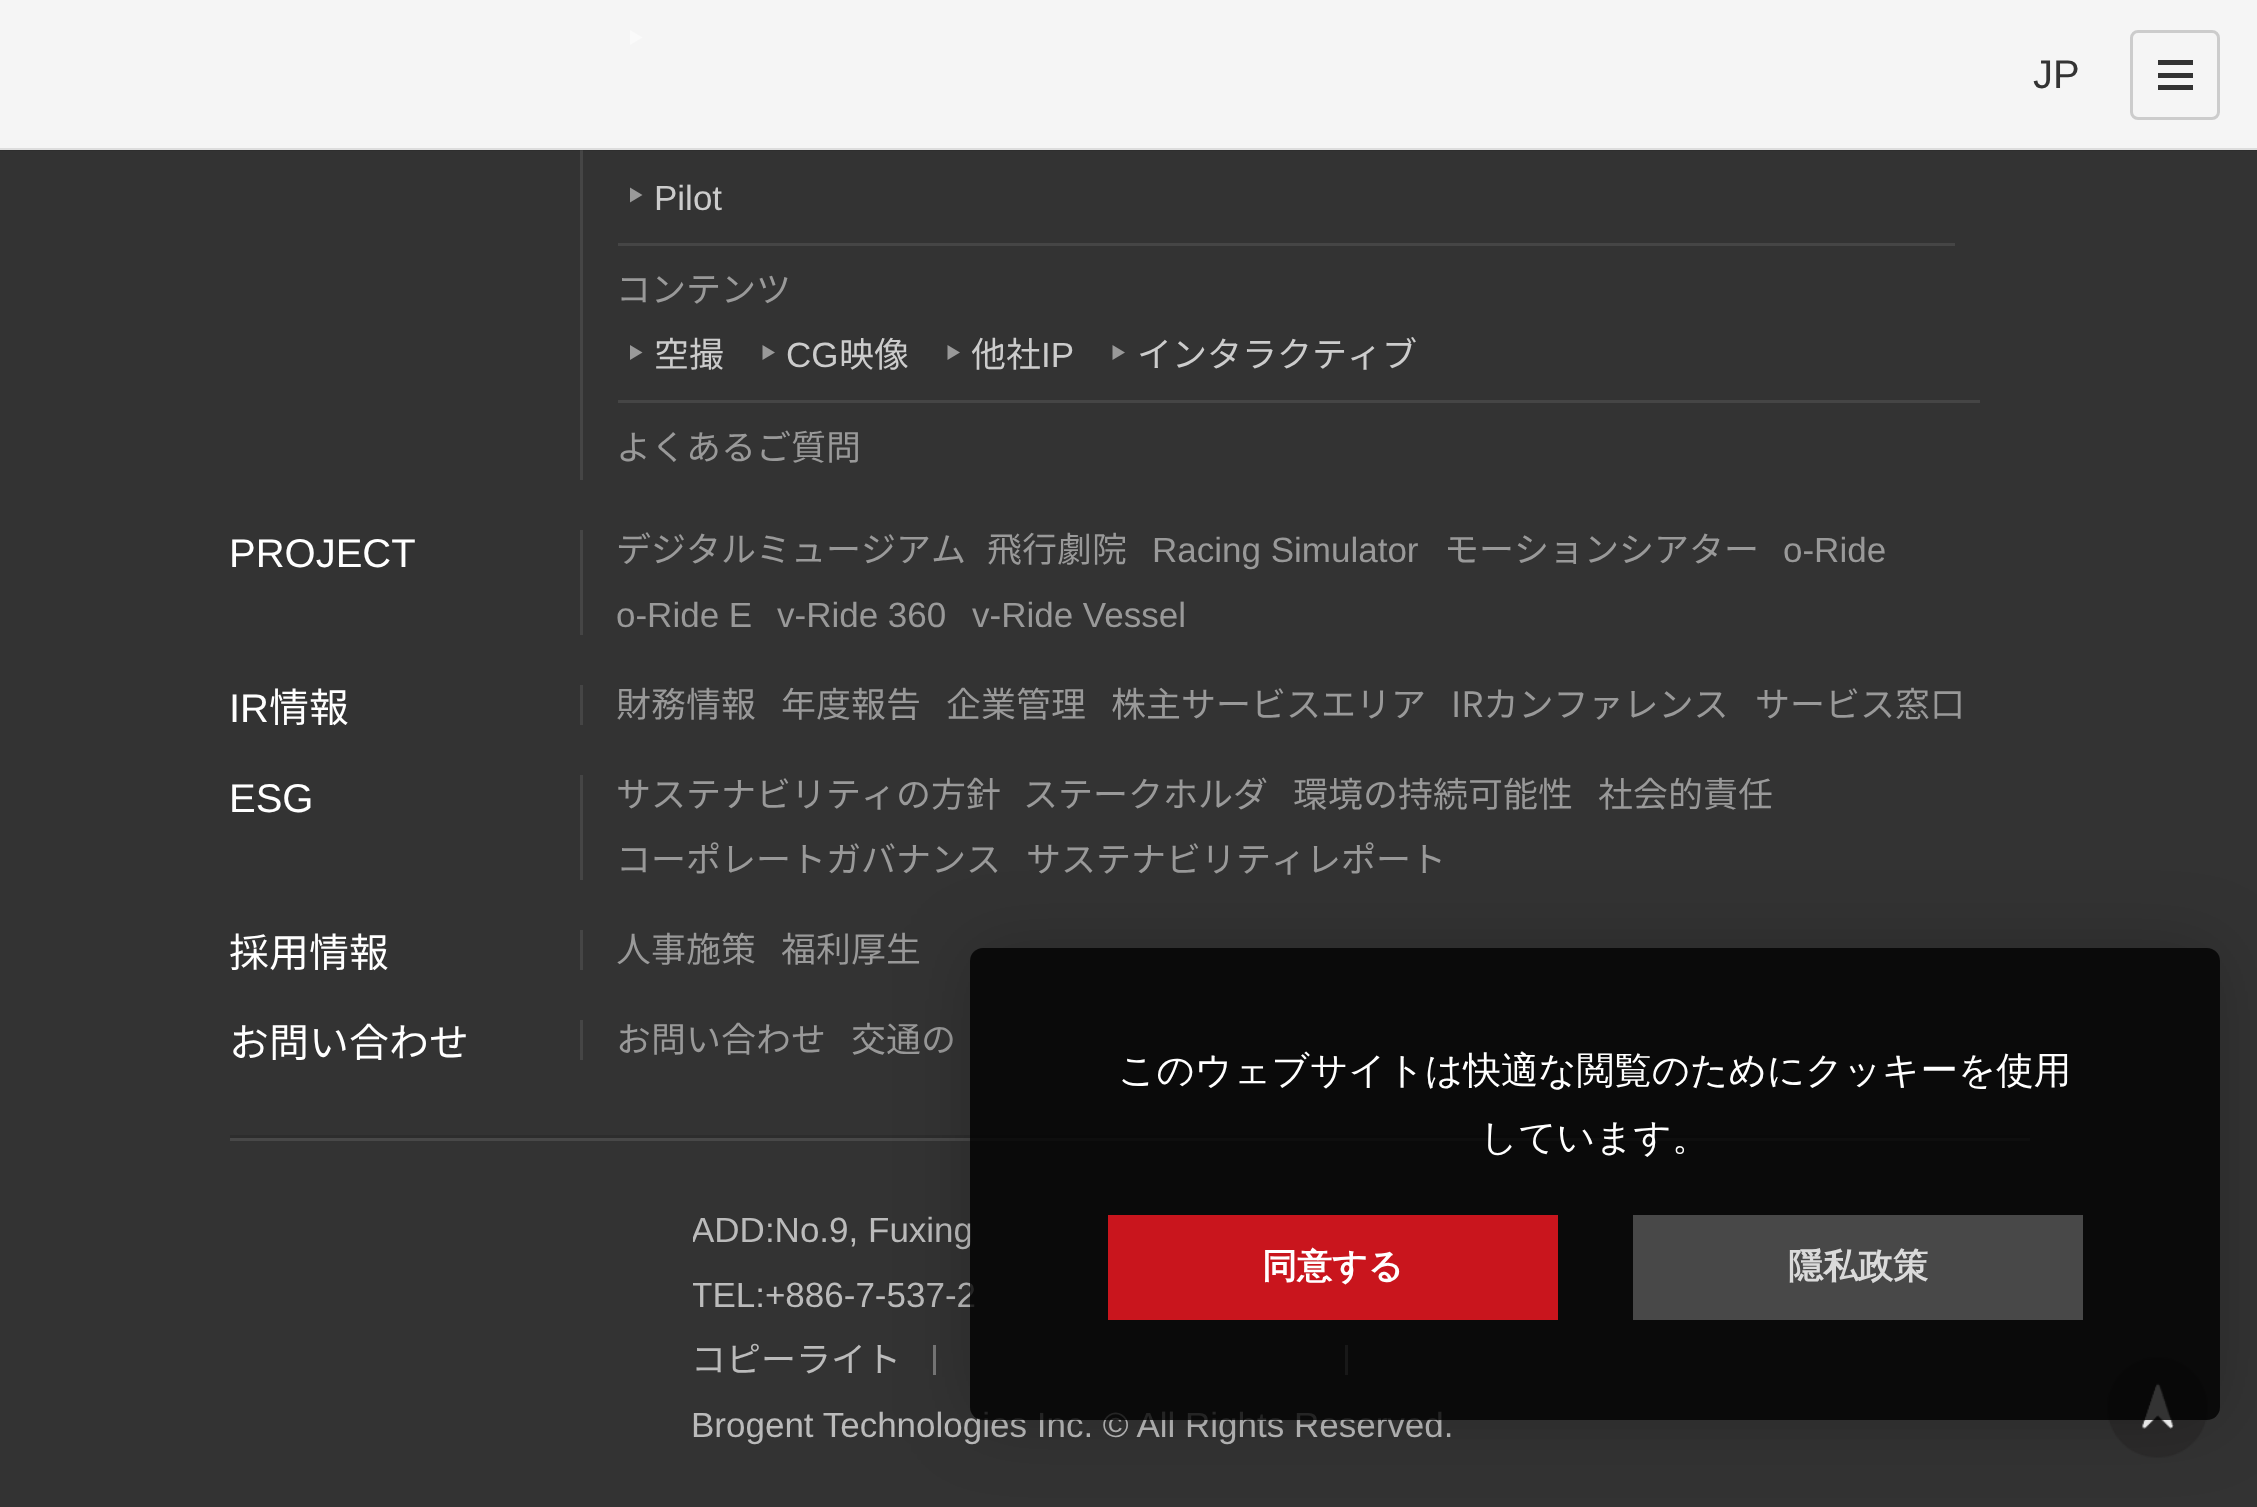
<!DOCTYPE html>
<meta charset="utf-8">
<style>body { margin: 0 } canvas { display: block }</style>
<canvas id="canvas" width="2257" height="1507"></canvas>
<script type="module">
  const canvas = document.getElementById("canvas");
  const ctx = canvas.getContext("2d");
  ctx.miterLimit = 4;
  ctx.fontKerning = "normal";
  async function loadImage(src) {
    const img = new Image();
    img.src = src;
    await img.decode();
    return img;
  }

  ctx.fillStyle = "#333333";
  ctx.fillRect(0, 0, 2257, 1507);
  ctx.fillStyle = "#f5f5f5";
  ctx.fillRect(0, 0, 2257, 148);
  ctx.font = "40px Liberation Sans";
  ctx.fillStyle = "#333333";
  ctx.fillText("JP", 2033, 88);
  ctx.beginPath();
  ctx.roundRect(2131.5, 31.5, 87, 87, 6.5);
  ctx.strokeStyle = "#cccccc";
  ctx.lineWidth = 3;
  ctx.stroke();
  ctx.fillRect(2158, 60, 35, 5);
  ctx.fillRect(2158, 73, 35, 5);
  ctx.fillRect(2158, 85, 35, 5);
  ctx.fillStyle = "#2e2e2e";
  ctx.fillRect(0, 150, 2257, 1);
  ctx.fillStyle = "#dddddd";
  ctx.fillRect(0, 148, 2257, 2);
  ctx.fillStyle = "#2d2d2d";
  ctx.fillRect(230, 1135, 1800, 3);
  ctx.fillStyle = "#fafafa";
  ctx.beginPath();
  ctx.moveTo(630, 45);
  ctx.lineTo(630, 30);
  ctx.lineTo(642.5, 37.5);
  ctx.closePath();
  ctx.fill();
  ctx.fillStyle = "#454545";
  ctx.fillRect(580, 151, 3, 329);
  ctx.fillStyle = "#3e3e3e";
  ctx.fillRect(580, 150, 3, 1);
  ctx.fillStyle = "#f6f6f6";
  ctx.fillRect(580, 148, 3, 2);
  ctx.fillStyle = "#dddddd";
  ctx.fillRect(580, 148, 3, 2);
  ctx.fillStyle = "#999999";
  ctx.beginPath();
  ctx.moveTo(630, 202.5);
  ctx.lineTo(630, 187.5);
  ctx.lineTo(642.5, 195);
  ctx.closePath();
  ctx.fill();
  ctx.font = "35px Liberation Sans";
  ctx.fillStyle = "#cccccc";
  ctx.fillText("Pilot", 654, 210);
  ctx.fillStyle = "#454545";
  ctx.fillRect(618, 243, 1337, 3);
  ctx.font = "35px Noto Sans JP";
  ctx.fillStyle = "#999999";
  ctx.fillText("コンテンツ", 616, 302);
  ctx.beginPath();
  ctx.moveTo(630, 360);
  ctx.lineTo(630, 345);
  ctx.lineTo(642.5, 352.5);
  ctx.closePath();
  ctx.fill();
  ctx.fillStyle = "#cccccc";
  ctx.fillText("空撮", 654, 367);
  ctx.fillStyle = "#999999";
  ctx.beginPath();
  ctx.moveTo(762.5, 360);
  ctx.lineTo(762.5, 345);
  ctx.lineTo(775, 352.5);
  ctx.closePath();
  ctx.fill();
  ctx.font = "35px Liberation Sans";
  ctx.fillStyle = "#cccccc";
  ctx.fillText("CG", 786, 367);
  ctx.font = "35px Noto Sans JP";
  ctx.fillText("映像", 839, 367);
  ctx.fillStyle = "#999999";
  ctx.beginPath();
  ctx.moveTo(947.5, 360);
  ctx.lineTo(947.5, 345);
  ctx.lineTo(960, 352.5);
  ctx.closePath();
  ctx.fill();
  ctx.fillStyle = "#cccccc";
  ctx.fillText("他社", 971, 367);
  ctx.font = "35px Liberation Sans";
  ctx.fillText("IP", 1041, 367);
  ctx.fillStyle = "#999999";
  ctx.beginPath();
  ctx.moveTo(1112.5, 360);
  ctx.lineTo(1112.5, 345);
  ctx.lineTo(1125, 352.5);
  ctx.closePath();
  ctx.fill();
  ctx.font = "35px Noto Sans JP";
  ctx.fillStyle = "#cccccc";
  ctx.fillText("インタラクティブ", 1137, 367);
  ctx.fillStyle = "#454545";
  ctx.fillRect(618, 400, 1362, 3);
  ctx.fillStyle = "#999999";
  ctx.fillText("よくあるご質問", 616, 460);
  ctx.font = "40px Liberation Sans";
  ctx.fillStyle = "#ffffff";
  ctx.fillText("PROJECT", 229, 567);
  ctx.fillStyle = "#454545";
  ctx.fillRect(580, 530, 3, 105);
  ctx.font = "35px Noto Sans JP";
  ctx.fillStyle = "#999999";
  ctx.fillText("デジタルミュージアム", 616, 562);
  ctx.fillText("飛行劇院", 987, 562);
  ctx.font = "35px Liberation Sans";
  ctx.fillText("Racing Simulator", 1152, 562);
  ctx.font = "35px Noto Sans JP";
  ctx.fillText("モーションシアター", 1444, 562);
  ctx.font = "35px Liberation Sans";
  ctx.fillText("o-Ride", 1783, 562);
  ctx.fillText("o-Ride E", 616, 627);
  ctx.fillText("v-Ride 360", 777, 627);
  ctx.fillText("v-Ride Vessel", 972, 627);
  ctx.font = "40px Liberation Sans";
  ctx.fillStyle = "#ffffff";
  ctx.fillText("IR", 229, 722);
  ctx.font = "40px Noto Sans JP";
  ctx.fillText("情報", 269, 722);
  ctx.fillStyle = "#454545";
  ctx.fillRect(580, 685, 3, 40);
  ctx.font = "35px Noto Sans JP";
  ctx.fillStyle = "#999999";
  ctx.fillText("財務情報", 616, 717);
  ctx.fillText("年度報告", 781, 717);
  ctx.fillText("企業管理", 946, 717);
  ctx.fillText("株主サービスエリア", 1111, 717);
  ctx.fillText("IRカンファレンス", 1451, 717);
  ctx.fillText("サービス窓口", 1755, 717);
  ctx.font = "40px Liberation Sans";
  ctx.fillStyle = "#ffffff";
  ctx.fillText("ESG", 229, 812);
  ctx.fillStyle = "#454545";
  ctx.fillRect(580, 775, 3, 105);
  ctx.font = "35px Noto Sans JP";
  ctx.fillStyle = "#999999";
  ctx.fillText("サステナビリティの方針", 616, 807);
  ctx.fillText("ステークホルダ", 1023, 807);
  ctx.fillText("環境の持続可能性", 1293, 807);
  ctx.fillText("社会的責任", 1598, 807);
  ctx.fillText("コーポレートガバナンス", 616, 872);
  ctx.fillText("サステナビリティレポート", 1026, 872);
  ctx.font = "40px Noto Sans JP";
  ctx.fillStyle = "#ffffff";
  ctx.fillText("採用情報", 229, 967);
  ctx.fillStyle = "#454545";
  ctx.fillRect(580, 930, 3, 40);
  ctx.font = "35px Noto Sans JP";
  ctx.fillStyle = "#999999";
  ctx.fillText("人事施策", 616, 962);
  ctx.fillText("福利厚生", 781, 962);
  ctx.font = "40px Noto Sans JP";
  ctx.fillStyle = "#ffffff";
  ctx.fillText("お問い合わせ", 229, 1057);
  ctx.fillStyle = "#454545";
  ctx.fillRect(580, 1020, 3, 40);
  ctx.font = "35px Noto Sans JP";
  ctx.fillStyle = "#999999";
  ctx.fillText("お問い合わせ", 616, 1052);
  ctx.fillText("交通の", 851, 1052);
  ctx.fillStyle = "#484848";
  ctx.fillRect(230, 1138, 1800, 3);
  ctx.save();
  ctx.beginPath();
  ctx.rect(693, 1190, 1337, 268);
  ctx.clip();
  ctx.font = "35px Liberation Sans";
  ctx.fillStyle = "#bbbbbb";
  ctx.fillText("ADD:No.9, Fuxing", 691, 1242);
  ctx.fillText("TEL:+886-7-537-2", 691, 1307);
  ctx.restore();
  ctx.fillStyle = "#bbbbbb";
  ctx.fillText("コピーライト", 691, 1372);
  ctx.fillStyle = "#777777";
  ctx.fillRect(933, 1345, 3, 30);
  ctx.fillRect(1345, 1345, 3, 30);
  ctx.font = "35px Liberation Sans";
  ctx.fillStyle = "#bbbbbb";
  ctx.fillText("Brogent Technologies Inc. © All Rights Reserved.", 691, 1437);
  ctx.drawImage(await loadImage("img1.png"), 2107, 1357, 101, 101);
  ctx.save();
  ctx.beginPath();
  ctx.moveTo(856, 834);
  ctx.lineTo(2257, 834);
  ctx.lineTo(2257, 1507);
  ctx.lineTo(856, 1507);
  ctx.closePath();
  ctx.moveTo(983, 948);
  ctx.lineTo(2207, 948);
  ctx.bezierCurveTo(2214, 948, 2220, 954, 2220, 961);
  ctx.lineTo(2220, 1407);
  ctx.bezierCurveTo(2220, 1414, 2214, 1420, 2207, 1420);
  ctx.lineTo(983, 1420);
  ctx.bezierCurveTo(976, 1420, 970, 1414, 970, 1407);
  ctx.lineTo(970, 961);
  ctx.bezierCurveTo(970, 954, 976, 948, 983, 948);
  ctx.closePath();
  ctx.clip("evenodd");
  ctx.fillStyle = "rgba(0, 0, 0, 0.2)";
  ctx.filter = "blur(37.5px)";
  ctx.beginPath();
  ctx.roundRect(970, 948, 1250, 472, 13);
  ctx.fill();
  ctx.filter = "none";
  ctx.restore();
  ctx.fillStyle = "rgba(0, 0, 0, 0.8)";
  ctx.beginPath();
  ctx.roundRect(970, 948, 1250, 472, 13);
  ctx.fill();
  ctx.font = "500 37.5px WenQuanYi Zen Hei";
  ctx.fillStyle = "#ffffff";
  ctx.fillText("このウェブサイトは快適な閲覧のためにクッキーを使用", 1118, 1083);
  ctx.fillText("しています。", 1480, 1150);
  ctx.fillStyle = "rgba(88, 88, 88, 0.8)";
  ctx.fillRect(1633, 1215, 450, 105);
  ctx.font = "bold 35px WenQuanYi Zen Hei";
  ctx.fillStyle = "#dadada";
  ctx.fillText("隱私政策", 1788, 1278);
  ctx.fillStyle = "#c9151d";
  ctx.fillRect(1108, 1215, 450, 105);
  ctx.fillStyle = "#ffffff";
  ctx.fillText("同意する", 1262, 1278);
</script>
